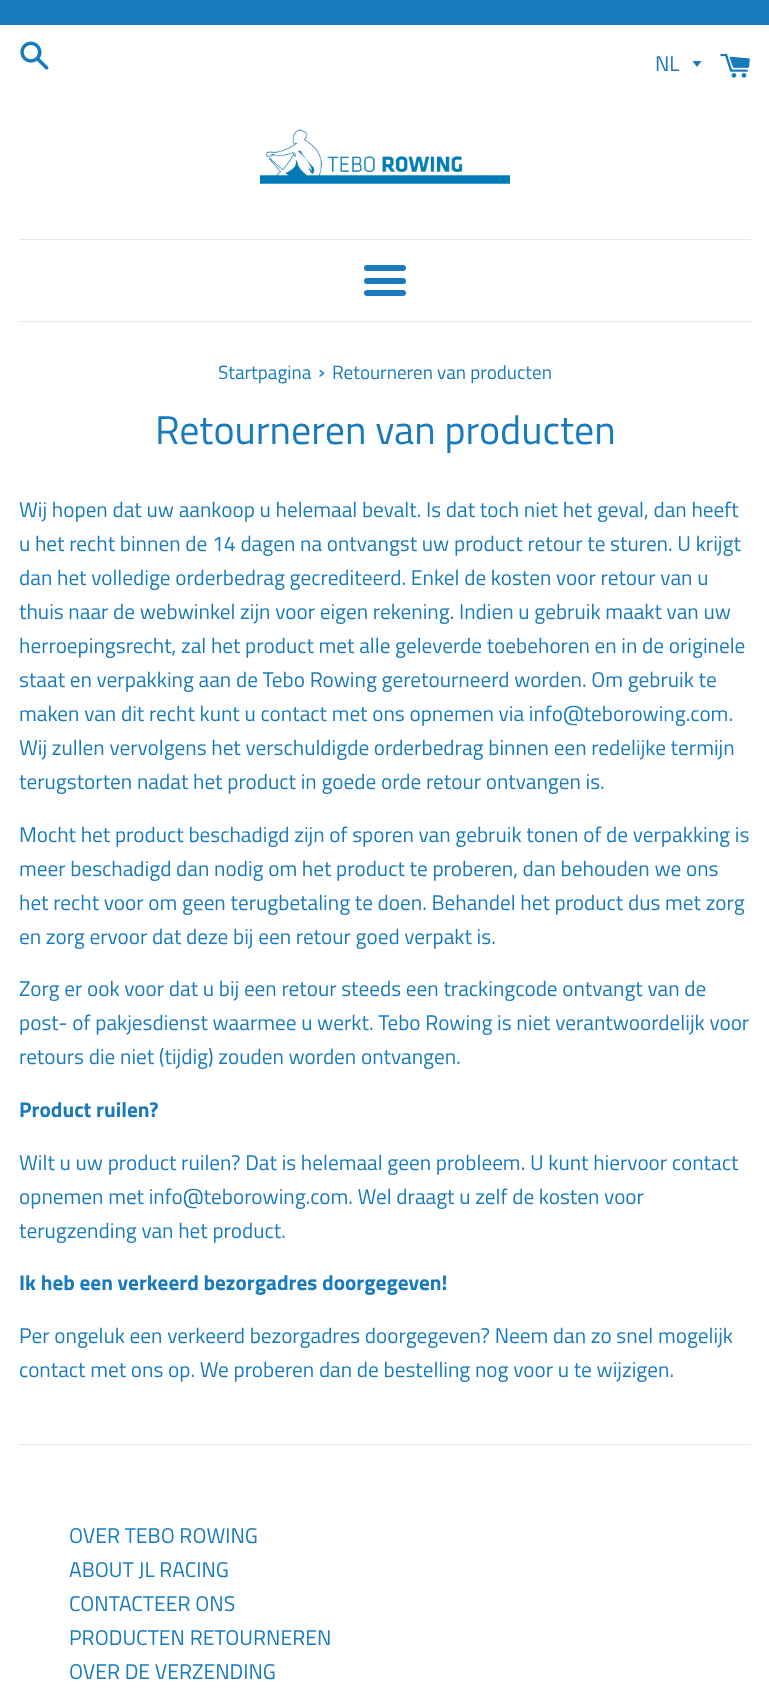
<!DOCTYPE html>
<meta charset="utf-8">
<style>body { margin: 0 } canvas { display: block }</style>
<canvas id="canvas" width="769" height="1699"></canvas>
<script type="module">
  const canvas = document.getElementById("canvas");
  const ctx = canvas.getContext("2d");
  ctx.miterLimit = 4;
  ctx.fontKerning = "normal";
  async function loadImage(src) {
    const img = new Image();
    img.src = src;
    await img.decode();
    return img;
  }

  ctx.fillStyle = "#ffffff";
  ctx.fillRect(0, 0, 769, 1699);
  ctx.fillStyle = "#197bbd";
  ctx.fillRect(0, 0, 769, 25);
  ctx.drawImage(await loadImage("img1.png"), 20, 41, 29, 29);
  ctx.beginPath();
  ctx.moveTo(692.5, 61);
  ctx.lineTo(697, 67);
  ctx.lineTo(701.5, 61);
  ctx.closePath();
  ctx.fill();
  ctx.font = "21.25px Titillium Web";
  ctx.fillText("NL", 655, 71);
  ctx.drawImage(await loadImage("img2.png"), 720, 53, 30, 25);
  ctx.drawImage(await loadImage("img3.png"), 260, 129, 250, 55);
  ctx.fillStyle = "#e8e8e8";
  ctx.fillRect(19, 239, 732, 1);
  ctx.fillStyle = "#197bbd";
  ctx.beginPath();
  ctx.roundRect(364, 265, 42, 6, 3);
  ctx.fill();
  ctx.beginPath();
  ctx.roundRect(364, 278, 42, 6, 3);
  ctx.fill();
  ctx.beginPath();
  ctx.roundRect(364, 290, 42, 6, 3);
  ctx.fill();
  ctx.fillStyle = "#e8e8e8";
  ctx.fillRect(19, 321, 732, 1);
  ctx.font = "19.1px Titillium Web";
  ctx.fillStyle = "#197bbd";
  ctx.fillText("Startpagina", 218, 379);
  ctx.font = "23px Titillium Web";
  ctx.fillText("›", 318, 379);
  ctx.font = "19.1px Titillium Web";
  ctx.fillText("Retourneren van producten", 332, 379);
  ctx.font = "40px Titillium Web";
  ctx.fillText("Retourneren van producten", 155, 444);
  ctx.font = "21.25px Titillium Web";
  ctx.fillText("Wij hopen dat uw aankoop u helemaal bevalt. Is dat toch niet het geval, dan heeft", 19, 517);
  ctx.fillText("u het recht binnen de 14 dagen na ontvangst uw product retour te sturen. U krijgt", 19, 551);
  ctx.fillText("dan het volledige orderbedrag gecrediteerd. Enkel de kosten voor retour van u", 19, 585);
  ctx.fillText("thuis naar de webwinkel zijn voor eigen rekening. Indien u gebruik maakt van uw", 19, 619);
  ctx.fillText("herroepingsrecht, zal het product met alle geleverde toebehoren en in de originele", 19, 653);
  ctx.fillText("staat en verpakking aan de Tebo Rowing geretourneerd worden. Om gebruik te", 19, 687);
  ctx.fillText("maken van dit recht kunt u contact met ons opnemen via info@teborowing.com.", 19, 721);
  ctx.fillText("Wij zullen vervolgens het verschuldigde orderbedrag binnen een redelijke termijn", 19, 755);
  ctx.fillText("terugstorten nadat het product in goede orde retour ontvangen is.", 19, 789);
  ctx.fillText("Mocht het product beschadigd zijn of sporen van gebruik tonen of de verpakking is", 19, 842);
  ctx.fillText("meer beschadigd dan nodig om het product te proberen, dan behouden we ons", 19, 876);
  ctx.fillText("het recht voor om geen terugbetaling te doen. Behandel het product dus met zorg", 19, 910);
  ctx.fillText("en zorg ervoor dat deze bij een retour goed verpakt is.", 19, 944);
  ctx.fillText("Zorg er ook voor dat u bij een retour steeds een trackingcode ontvangt van de", 19, 996);
  ctx.fillText("post- of pakjesdienst waarmee u werkt. Tebo Rowing is niet verantwoordelijk voor", 19, 1030);
  ctx.fillText("retours die niet (tijdig) zouden worden ontvangen.", 19, 1064);
  ctx.font = "bold 21.25px Titillium Web";
  ctx.fillText("Product ruilen?", 19, 1117);
  ctx.font = "21.25px Titillium Web";
  ctx.fillText("Wilt u uw product ruilen? Dat is helemaal geen probleem. U kunt hiervoor contact", 19, 1170);
  ctx.fillText("opnemen met info@teborowing.com. Wel draagt u zelf de kosten voor", 19, 1204);
  ctx.fillText("terugzending van het product.", 19, 1238);
  ctx.font = "bold 21.25px Titillium Web";
  ctx.fillText("Ik heb een verkeerd bezorgadres doorgegeven!", 19, 1290);
  ctx.font = "21.25px Titillium Web";
  ctx.fillText("Per ongeluk een verkeerd bezorgadres doorgegeven? Neem dan zo snel mogelijk", 19, 1343);
  ctx.fillText("contact met ons op. We proberen dan de bestelling nog voor u te wijzigen.", 19, 1377);
  ctx.fillStyle = "#e8e8e8";
  ctx.fillRect(19, 1444, 732, 1);
  ctx.fillStyle = "#197bbd";
  ctx.fillText("OVER TEBO ROWING", 69, 1543);
  ctx.fillText("ABOUT JL RACING", 69, 1577);
  ctx.fillText("CONTACTEER ONS", 69, 1611);
  ctx.fillText("PRODUCTEN RETOURNEREN", 69, 1645);
  ctx.fillText("OVER DE VERZENDING", 69, 1679);
</script>
